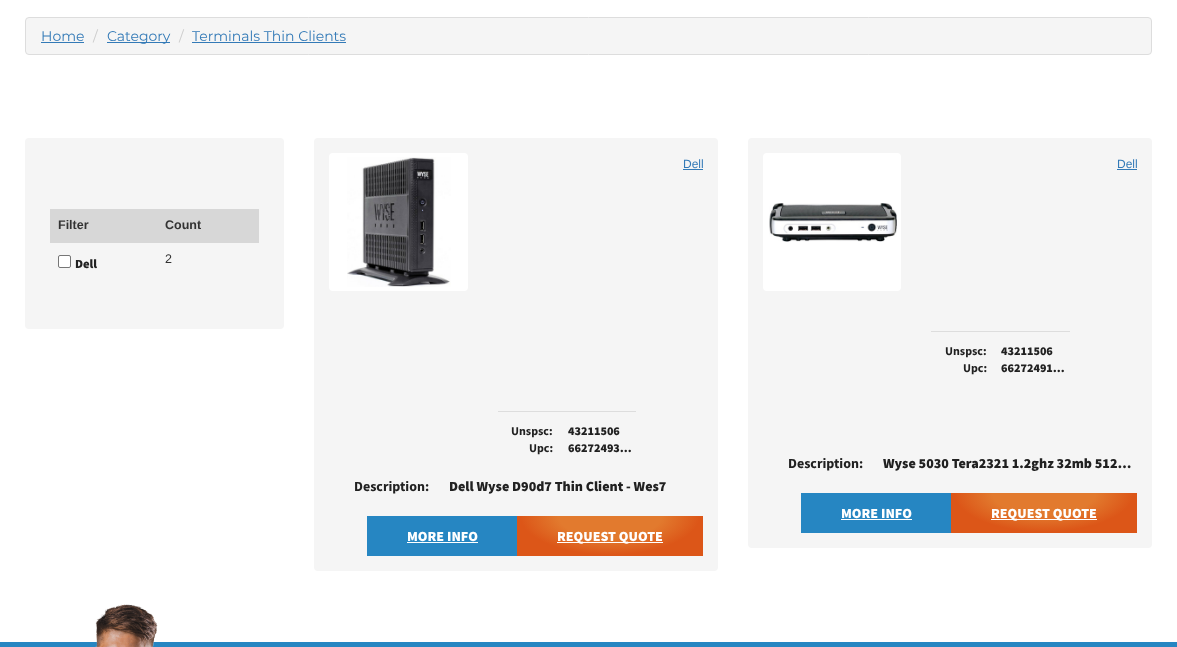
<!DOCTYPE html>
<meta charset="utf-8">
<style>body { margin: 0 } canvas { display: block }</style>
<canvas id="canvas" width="1177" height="647"></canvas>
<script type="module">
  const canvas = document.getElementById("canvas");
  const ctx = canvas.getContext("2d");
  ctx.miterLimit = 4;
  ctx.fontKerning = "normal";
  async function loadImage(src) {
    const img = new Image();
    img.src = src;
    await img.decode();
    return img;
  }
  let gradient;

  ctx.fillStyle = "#ffffff";
  ctx.fillRect(0, 0, 1177, 647);
  ctx.fillStyle = "#f5f5f5";
  ctx.beginPath();
  ctx.roundRect(25.5, 17.5, 1126, 37, 3.5);
  ctx.fill();
  ctx.strokeStyle = "#dddddd";
  ctx.stroke();
  ctx.font = "14px Montserrat";
  ctx.fillStyle = "#337ab7";
  ctx.fillText("Home", 41, 41);
  ctx.fillRect(41, 42, 43, 1);
  ctx.fillStyle = "#cccccc";
  ctx.fillText("/", 93, 41);
  ctx.fillStyle = "#337ab7";
  ctx.fillRect(107, 42, 63, 1);
  ctx.fillText("Category", 107, 41);
  ctx.fillStyle = "#cccccc";
  ctx.fillText("/", 179, 41);
  ctx.fillStyle = "#337ab7";
  ctx.fillText("Terminals Thin Clients", 192, 41);
  ctx.fillRect(192, 42, 154, 1);
  ctx.fillStyle = "#f5f5f5";
  ctx.beginPath();
  ctx.roundRect(25, 138, 259, 191, 4);
  ctx.fill();
  ctx.fillStyle = "#d7d7d7";
  ctx.fillRect(50, 209, 209, 34);
  ctx.font = "bold 12.5px Liberation Sans";
  ctx.fillStyle = "#333333";
  ctx.fillText("Filter", 58, 229);
  ctx.fillText("Count", 165, 229);
  ctx.fillStyle = "#ffffff";
  ctx.beginPath();
  ctx.roundRect(58.5, 255.5, 12, 12, 1.5);
  ctx.fill();
  ctx.strokeStyle = "#767676";
  ctx.stroke();
  ctx.font = "900 12.5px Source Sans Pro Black";
  ctx.fillStyle = "#212121";
  ctx.fillText("Dell", 75, 268);
  ctx.font = "12.5px Liberation Sans";
  ctx.fillStyle = "#333333";
  ctx.fillText("2", 165, 263);
  ctx.fillStyle = "#f5f5f5";
  ctx.beginPath();
  ctx.roundRect(314, 138, 404, 433, 4);
  ctx.fill();
  ctx.fillStyle = "#ffffff";
  ctx.beginPath();
  ctx.roundRect(329, 153, 139, 138, 4);
  ctx.fill();
  ctx.drawImage(await loadImage("img1.png"), 347, 157, 104, 130);
  ctx.font = "12px Liberation Sans";
  ctx.fillStyle = "#337ab7";
  ctx.fillText("Dell", 683, 168);
  ctx.fillRect(683, 169, 20, 1);
  ctx.fillStyle = "#dddddd";
  ctx.fillRect(498, 411, 138, 1);
  ctx.font = "bold 12px Source Sans Pro";
  ctx.fillStyle = "#212121";
  ctx.fillText("Unspsc:", 511, 435);
  ctx.save();
  ctx.beginPath();
  ctx.rect(568, 422, 68, 17);
  ctx.clip();
  ctx.font = "900 12px Source Sans Pro Black";
  ctx.fillText("43211506", 568, 435);
  ctx.restore();
  ctx.fillText("Upc:", 529, 452);
  ctx.font = "900 12px Source Sans Pro Black";
  ctx.fillText("66272493…", 568, 452);
  ctx.font = "bold 14px Source Sans Pro";
  ctx.fillText("Description:", 354, 491);
  ctx.font = "900 14px Source Sans Pro Black";
  ctx.fillText("Dell Wyse D90d7 Thin Client - Wes7", 449, 491);
  ctx.fillStyle = "#2686c2";
  ctx.fillRect(367, 516, 150, 40);
  ctx.fillStyle = "#ffffff";
  ctx.fillText("MORE INFO", 407, 541);
  ctx.fillRect(407, 542, 71, 1);
  gradient = ctx.createRadialGradient(610, 1194.95, 0, 610, 1194.95, 132);
  gradient.addColorStop(0.39, "#e27a2e");
  gradient.addColorStop(0.68, "#dc5618");
  ctx.fillStyle = gradient;
  ctx.beginPath();
  ctx.rect(517, 516, 186, 40);
  ctx.save();
  ctx.clip();
  ctx.scale(1, 57 / 132);
  ctx.fillRect(0, 0, 1177, 1499);
  ctx.restore();
  ctx.fillStyle = "#ffffff";
  ctx.fillRect(557, 542, 106, 1);
  ctx.fillText("REQUEST QUOTE", 557, 541);
  ctx.fillStyle = "#f5f5f5";
  ctx.beginPath();
  ctx.roundRect(748, 138, 404, 410, 4);
  ctx.fill();
  ctx.fillStyle = "#ffffff";
  ctx.beginPath();
  ctx.roundRect(763, 153, 138, 138, 4);
  ctx.fill();
  ctx.drawImage(await loadImage("img2.png"), 769, 203, 128, 39);
  ctx.font = "12px Liberation Sans";
  ctx.fillStyle = "#337ab7";
  ctx.fillText("Dell", 1117, 168);
  ctx.fillRect(1117, 169, 20, 1);
  ctx.fillStyle = "#dddddd";
  ctx.fillRect(931, 331, 139, 1);
  ctx.font = "bold 12px Source Sans Pro";
  ctx.fillStyle = "#212121";
  ctx.fillText("Unspsc:", 945, 355);
  ctx.font = "900 12px Source Sans Pro Black";
  ctx.fillText("43211506", 1001, 355);
  ctx.font = "bold 12px Source Sans Pro";
  ctx.fillText("Upc:", 963, 372);
  ctx.font = "900 12px Source Sans Pro Black";
  ctx.fillText("66272491…", 1001, 372);
  ctx.font = "bold 14px Source Sans Pro";
  ctx.fillText("Description:", 788, 468);
  ctx.font = "900 14px Source Sans Pro Black";
  ctx.fillText("Wyse 5030 Tera2321 1.2ghz 32mb 512…", 883, 468);
  ctx.fillStyle = "#2686c2";
  ctx.fillRect(801, 493, 150, 40);
  ctx.fillStyle = "#ffffff";
  ctx.fillText("MORE INFO", 841, 518);
  ctx.fillRect(841, 519, 71, 1);
  gradient = ctx.createRadialGradient(1044, 1141.68, 0, 1044, 1141.68, 132);
  gradient.addColorStop(0.39, "#e27a2e");
  gradient.addColorStop(0.68, "#dc5618");
  ctx.fillStyle = gradient;
  ctx.beginPath();
  ctx.rect(951, 493, 186, 40);
  ctx.save();
  ctx.clip();
  ctx.scale(1, 57 / 132);
  ctx.fillRect(0, 0, 1177, 1499);
  ctx.restore();
  ctx.fillStyle = "#ffffff";
  ctx.fillRect(991, 519, 106, 1);
  ctx.fillText("REQUEST QUOTE", 991, 518);
  ctx.fillStyle = "#2686c2";
  ctx.fillRect(0, 642, 1177, 5);
  ctx.drawImage(await loadImage("img3.png"), 95, 604, 63, 43);
</script>
